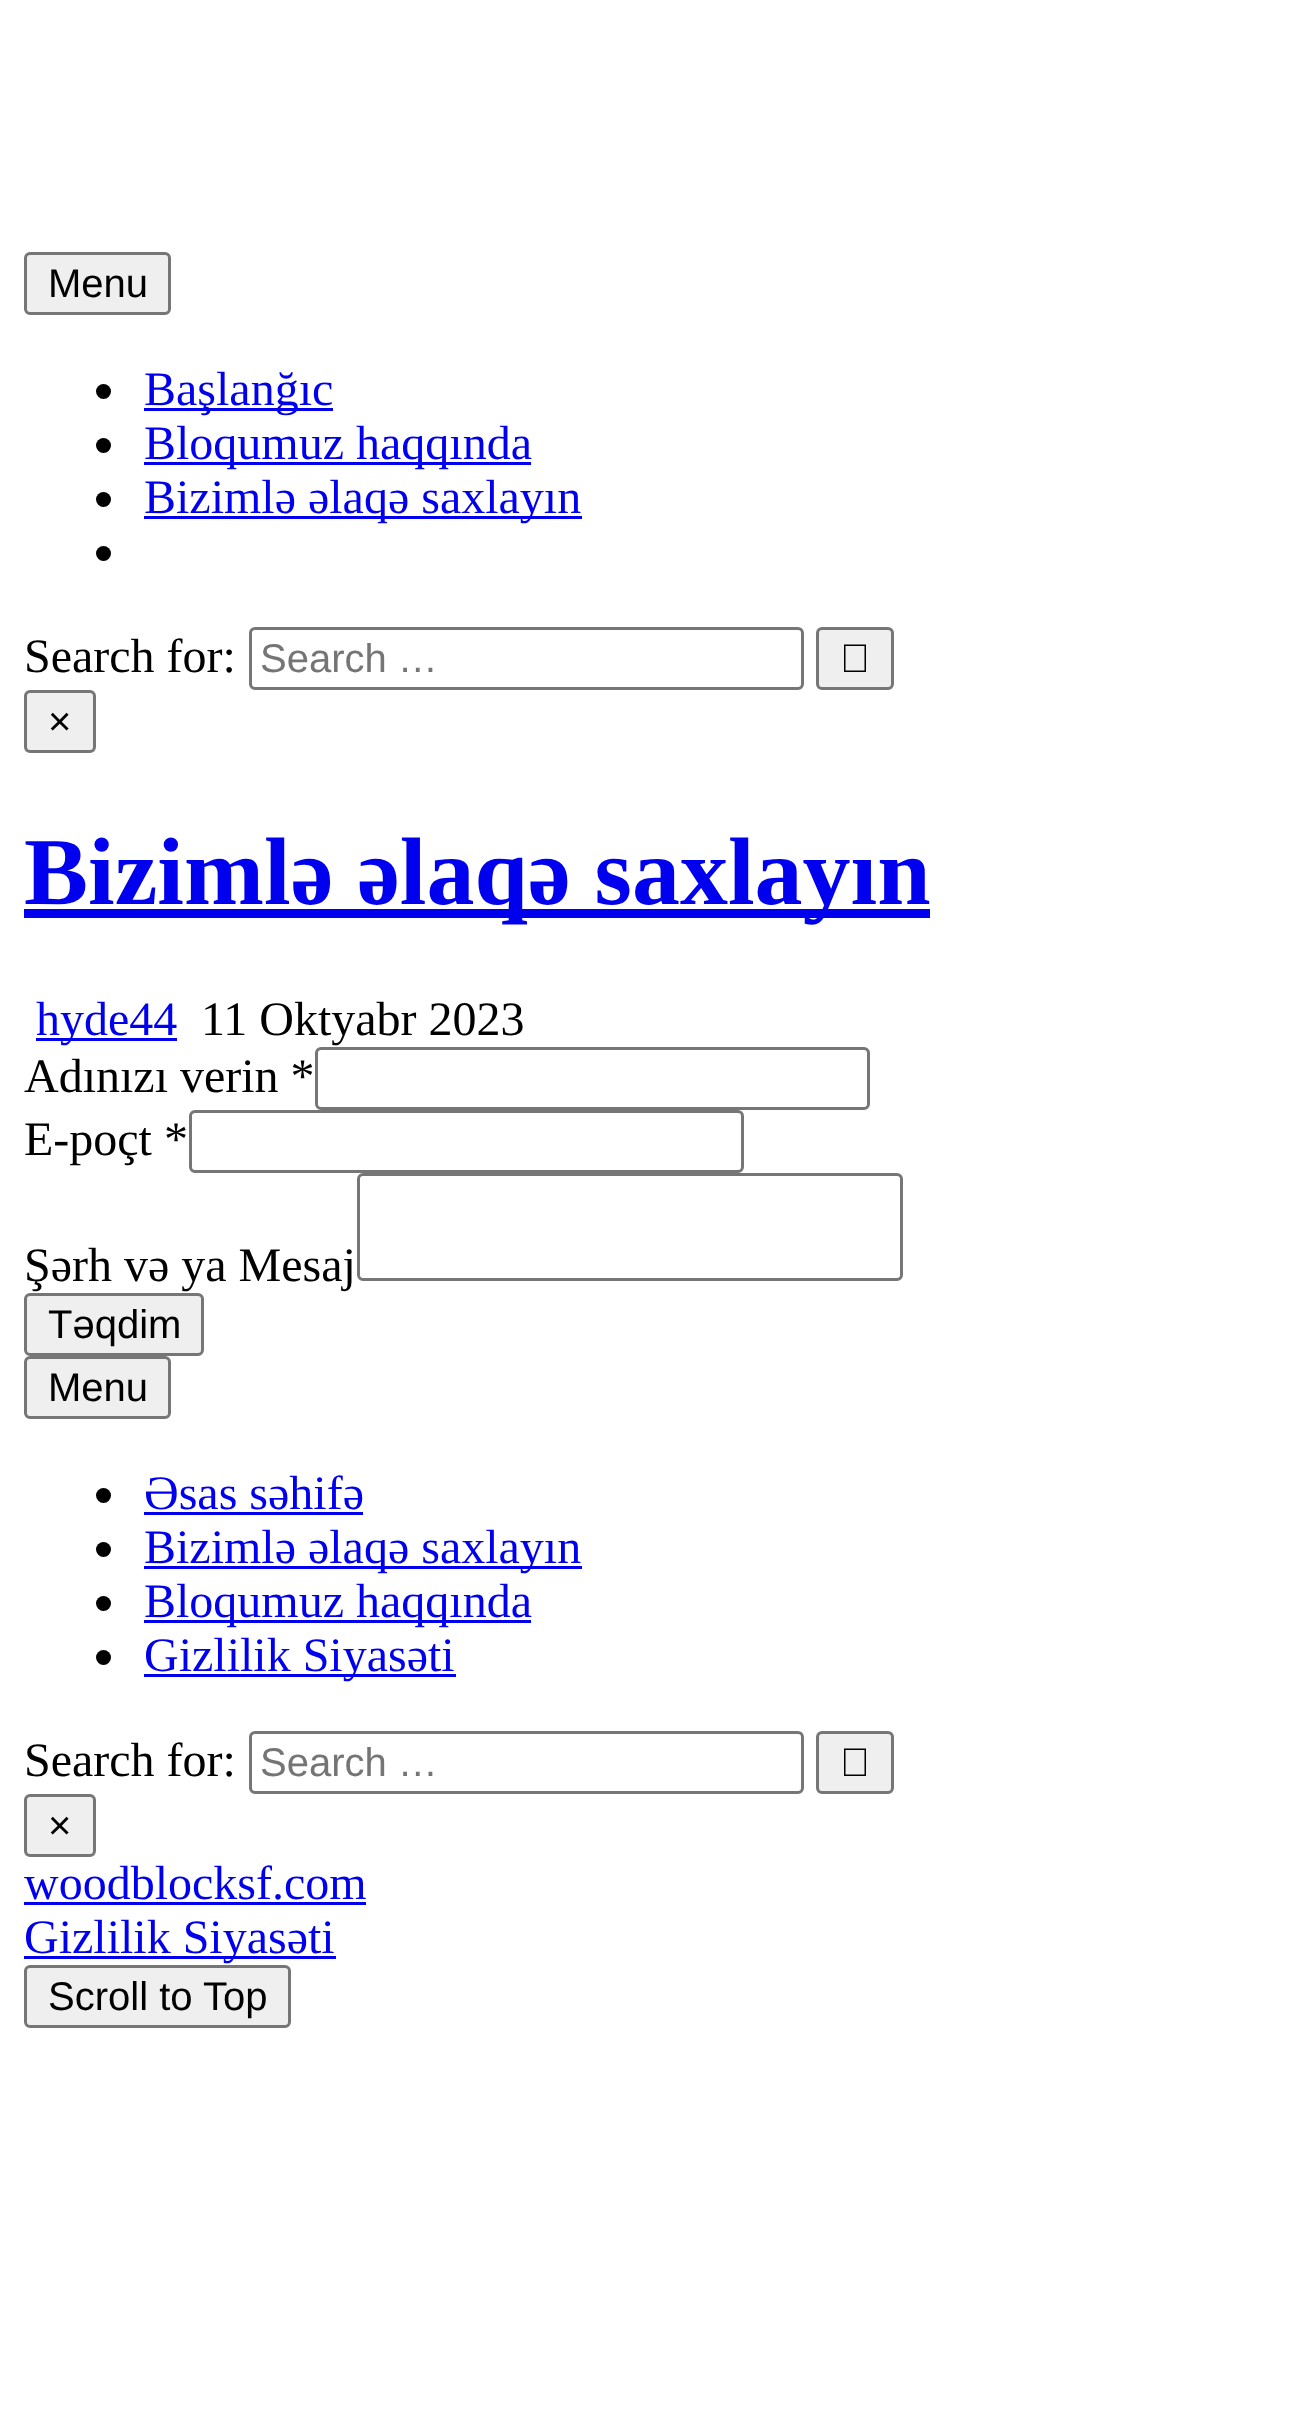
<!DOCTYPE html>
<meta charset="utf-8">
<style>body { margin: 0 } canvas { display: block }</style>
<canvas id="canvas" width="1289" height="2424"></canvas>
<script type="module">
  const canvas = document.getElementById("canvas");
  const ctx = canvas.getContext("2d");
  ctx.miterLimit = 4;
  ctx.fontKerning = "normal";

  ctx.fillStyle = "#ffffff";
  ctx.fillRect(0, 0, 1289, 2424);
  ctx.fillStyle = "#efefef";
  ctx.beginPath();
  ctx.roundRect(25.5, 253.5, 144, 60, 4.5);
  ctx.fill();
  ctx.strokeStyle = "#767676";
  ctx.lineWidth = 3;
  ctx.stroke();
  ctx.font = "40px Liberation Sans";
  ctx.fillStyle = "#000000";
  ctx.fillText("Menu", 48, 297);
  ctx.beginPath();
  ctx.arc(103.5, 391.5, 7.5, 0, Math.PI * 2);
  ctx.fill();
  ctx.fillStyle = "#0000ee";
  ctx.fillRect(144, 408, 189, 3);
  ctx.font = "48px Liberation Serif";
  ctx.fillText("Başlanğıc", 144, 405);
  ctx.fillStyle = "#000000";
  ctx.beginPath();
  ctx.arc(103.5, 445.5, 7.5, 0, Math.PI * 2);
  ctx.fill();
  ctx.fillStyle = "#0000ee";
  ctx.fillRect(144, 462, 387, 3);
  ctx.fillText("Bloqumuz haqqında", 144, 459);
  ctx.fillStyle = "#000000";
  ctx.beginPath();
  ctx.arc(103.5, 499.5, 7.5, 0, Math.PI * 2);
  ctx.fill();
  ctx.fillStyle = "#0000ee";
  ctx.fillRect(144, 516, 438, 3);
  ctx.fillText("Bizimlə əlaqə saxlayın", 144, 513);
  ctx.fillStyle = "#000000";
  ctx.beginPath();
  ctx.arc(103.5, 553.5, 7.5, 0, Math.PI * 2);
  ctx.fill();
  ctx.fillText("Search for:", 24, 672);
  ctx.beginPath();
  ctx.roundRect(250.5, 628.5, 552, 60, 4.5);
  ctx.stroke();
  ctx.font = "40px Liberation Sans";
  ctx.fillStyle = "#757575";
  ctx.fillText("Search …", 260, 672);
  ctx.fillStyle = "#efefef";
  ctx.beginPath();
  ctx.roundRect(817.5, 628.5, 75, 60, 4.5);
  ctx.fill();
  ctx.stroke();
  ctx.fillStyle = "#000000";
  ctx.beginPath();
  ctx.moveTo(844, 644.5);
  ctx.lineTo(866, 644.5);
  ctx.lineTo(866, 672);
  ctx.lineTo(844, 672);
  ctx.closePath();
  ctx.moveTo(845.5, 646);
  ctx.lineTo(845.5, 670.5);
  ctx.lineTo(864.5, 670.5);
  ctx.lineTo(864.5, 646);
  ctx.closePath();
  ctx.fill();
  ctx.fillStyle = "#efefef";
  ctx.beginPath();
  ctx.roundRect(25.5, 691.5, 69, 60, 4.5);
  ctx.fill();
  ctx.stroke();
  ctx.fillStyle = "#000000";
  ctx.fillText("×", 48, 735);
  ctx.fillStyle = "#0000ee";
  ctx.fillRect(24, 909, 906, 9);
  ctx.font = "bold 96px Liberation Serif";
  ctx.fillText("Bizimlə əlaqə saxlayın", 24, 904);
  ctx.fillRect(36, 1038, 141, 3);
  ctx.font = "48px Liberation Serif";
  ctx.fillText("hyde44", 36, 1035);
  ctx.fillStyle = "#000000";
  ctx.fillText("11 Oktyabr 2023", 201, 1035);
  ctx.fillText("Adınızı verin *", 24, 1092);
  ctx.beginPath();
  ctx.roundRect(316.5, 1048.5, 552, 60, 4.5);
  ctx.stroke();
  ctx.fillText("E-poçt *", 24, 1155);
  ctx.beginPath();
  ctx.roundRect(190.5, 1111.5, 552, 60, 4.5);
  ctx.stroke();
  ctx.fillText("Şərh və ya Mesaj", 24, 1281);
  ctx.beginPath();
  ctx.roundRect(358.5, 1174.5, 543, 105, 4.5);
  ctx.stroke();
  ctx.fillStyle = "#efefef";
  ctx.beginPath();
  ctx.roundRect(25.5, 1294.5, 177, 60, 4.5);
  ctx.fill();
  ctx.stroke();
  ctx.font = "40px Liberation Sans";
  ctx.fillStyle = "#000000";
  ctx.fillText("Təqdim", 48, 1338);
  ctx.fillStyle = "#efefef";
  ctx.beginPath();
  ctx.roundRect(25.5, 1357.5, 144, 60, 4.5);
  ctx.fill();
  ctx.stroke();
  ctx.fillStyle = "#000000";
  ctx.fillText("Menu", 48, 1401);
  ctx.beginPath();
  ctx.arc(103.5, 1495.5, 7.5, 0, Math.PI * 2);
  ctx.fill();
  ctx.font = "48px Liberation Serif";
  ctx.fillStyle = "#0000ee";
  ctx.fillText("Əsas səhifə", 144, 1509);
  ctx.fillRect(144, 1512, 219, 3);
  ctx.fillStyle = "#000000";
  ctx.beginPath();
  ctx.arc(103.5, 1549.5, 7.5, 0, Math.PI * 2);
  ctx.fill();
  ctx.fillStyle = "#0000ee";
  ctx.fillRect(144, 1566, 438, 3);
  ctx.fillText("Bizimlə əlaqə saxlayın", 144, 1563);
  ctx.fillStyle = "#000000";
  ctx.beginPath();
  ctx.arc(103.5, 1603.5, 7.5, 0, Math.PI * 2);
  ctx.fill();
  ctx.fillStyle = "#0000ee";
  ctx.fillRect(144, 1620, 387, 3);
  ctx.fillText("Bloqumuz haqqında", 144, 1617);
  ctx.fillStyle = "#000000";
  ctx.beginPath();
  ctx.arc(103.5, 1657.5, 7.5, 0, Math.PI * 2);
  ctx.fill();
  ctx.fillStyle = "#0000ee";
  ctx.fillRect(144, 1674, 312, 3);
  ctx.fillText("Gizlilik Siyasəti", 144, 1671);
  ctx.fillStyle = "#000000";
  ctx.fillText("Search for:", 24, 1776);
  ctx.beginPath();
  ctx.roundRect(250.5, 1732.5, 552, 60, 4.5);
  ctx.stroke();
  ctx.font = "40px Liberation Sans";
  ctx.fillStyle = "#757575";
  ctx.fillText("Search …", 260, 1776);
  ctx.fillStyle = "#efefef";
  ctx.beginPath();
  ctx.roundRect(817.5, 1732.5, 75, 60, 4.5);
  ctx.fill();
  ctx.stroke();
  ctx.fillStyle = "#000000";
  ctx.beginPath();
  ctx.moveTo(844, 1748.5);
  ctx.lineTo(866, 1748.5);
  ctx.lineTo(866, 1776);
  ctx.lineTo(844, 1776);
  ctx.closePath();
  ctx.moveTo(845.5, 1750);
  ctx.lineTo(845.5, 1774.5);
  ctx.lineTo(864.5, 1774.5);
  ctx.lineTo(864.5, 1750);
  ctx.closePath();
  ctx.fill();
  ctx.fillStyle = "#efefef";
  ctx.beginPath();
  ctx.roundRect(25.5, 1795.5, 69, 60, 4.5);
  ctx.fill();
  ctx.stroke();
  ctx.fillStyle = "#000000";
  ctx.fillText("×", 48, 1839);
  ctx.font = "48px Liberation Serif";
  ctx.fillStyle = "#0000ee";
  ctx.fillText("woodblocksf.com", 24, 1899);
  ctx.fillRect(24, 1902, 342, 3);
  ctx.fillRect(24, 1956, 312, 3);
  ctx.fillText("Gizlilik Siyasəti", 24, 1953);
  ctx.fillStyle = "#efefef";
  ctx.beginPath();
  ctx.roundRect(25.5, 1966.5, 264, 60, 4.5);
  ctx.fill();
  ctx.stroke();
  ctx.font = "40px Liberation Sans";
  ctx.fillStyle = "#000000";
  ctx.fillText("Scroll to Top", 48, 2010);
</script>
